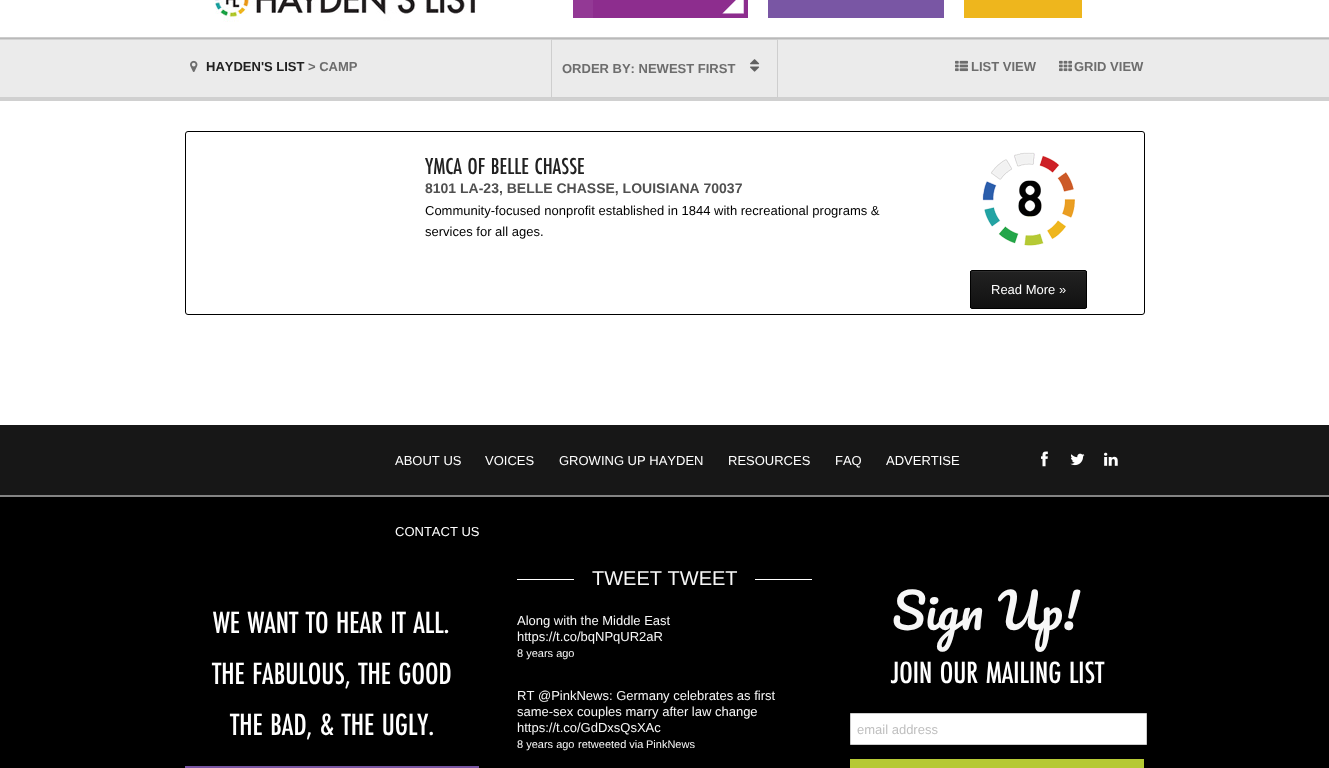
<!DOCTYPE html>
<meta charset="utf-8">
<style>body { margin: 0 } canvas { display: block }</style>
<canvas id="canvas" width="1329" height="768"></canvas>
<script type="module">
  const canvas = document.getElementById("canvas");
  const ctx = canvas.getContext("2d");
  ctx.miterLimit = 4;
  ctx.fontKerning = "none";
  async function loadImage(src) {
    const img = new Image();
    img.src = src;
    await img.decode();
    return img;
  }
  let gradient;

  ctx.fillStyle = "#ffffff";
  ctx.fillRect(0, 0, 1329, 768);
  ctx.fillStyle = "#ebebeb";
  ctx.fillRect(0, 39, 1329, 58);
  ctx.fillStyle = "#cecece";
  ctx.fillRect(0, 38, 1329, 1);
  ctx.fillStyle = "rgba(0, 0, 0, 0.1)";
  ctx.beginPath();
  ctx.moveTo(-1, -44);
  ctx.lineTo(-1, 40);
  ctx.lineTo(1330, 40);
  ctx.lineTo(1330, -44);
  ctx.lineTo(1329, -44);
  ctx.lineTo(1329, 38);
  ctx.lineTo(0, 38);
  ctx.lineTo(0, -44);
  ctx.closePath();
  ctx.fill();
  ctx.fillStyle = "#cccccc";
  ctx.fillRect(0, 37, 1329, 1);
  ctx.drawImage(await loadImage("img1.png"), 215, 0, 261, 22);
  ctx.fillStyle = "#933995";
  ctx.fillRect(573, 0, 20, 18);
  ctx.drawImage(await loadImage("img2.png"), 593, 0, 155, 18);
  ctx.fillStyle = "#7956a4";
  ctx.fillRect(768, 0, 176, 18);
  ctx.fillStyle = "#eeb61d";
  ctx.fillRect(964, 0, 118, 18);
  ctx.fillStyle = "#d0d0d0";
  ctx.fillRect(0, 97, 1329, 4);
  ctx.drawImage(await loadImage("img3.png"), 190, 60, 8, 12);
  ctx.font = "bold 13px Liberation Sans";
  ctx.fillStyle = "#212121";
  ctx.fillText("HAYDEN'S LIST", 206, 71);
  ctx.fillStyle = "#6d6d6d";
  ctx.fillText("> CAMP", 308, 71);
  ctx.strokeStyle = "#cecece";
  ctx.strokeRect(551.5, 39.5, 226, 58);
  ctx.fillText("ORDER BY: NEWEST FIRST", 562, 73);
  ctx.drawImage(await loadImage("img4.png"), 750, 59, 10, 13);
  ctx.drawImage(await loadImage("img5.png"), 955, 60, 13, 12);
  ctx.fillText("LIST VIEW", 971, 71);
  ctx.drawImage(await loadImage("img6.png"), 1059, 60, 13, 12);
  ctx.fillText("GRID VIEW", 1074, 71);
  ctx.beginPath();
  ctx.roundRect(185.5, 131.5, 959, 183, 2.5);
  ctx.strokeStyle = "#000000";
  ctx.stroke();
  ctx.font = "500 24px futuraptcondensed";
  ctx.fillStyle = "#212121";
  ctx.fillText("YMCA OF BELLE CHASSE", 425, 174);
  ctx.font = "bold 14px Liberation Sans";
  ctx.fillStyle = "#505050";
  ctx.fillText("8101 LA-23, BELLE CHASSE, LOUISIANA 70037", 425, 193);
  ctx.font = "13px Liberation Sans";
  ctx.fillStyle = "#000000";
  ctx.fillText("Community-focused nonprofit established in 1844 with recreational programs &", 425, 215);
  ctx.fillText("services for all ages.", 425, 236);
  ctx.drawImage(await loadImage("img7.png"), 982, 152, 93, 94);
  ctx.save();
  ctx.beginPath();
  ctx.roundRect(970, 270, 117, 39, 2);
  ctx.clip();
  gradient = ctx.createLinearGradient(1029, 271, 1029, 308);
  gradient.addColorStop(0, "#222222");
  gradient.addColorStop(1, "#111111");
  ctx.fillStyle = gradient;
  ctx.fillRect(970, 271, 117, 37);
  ctx.restore();
  ctx.fillStyle = "#2d2d2d";
  ctx.beginPath();
  ctx.moveTo(972, 272);
  ctx.lineTo(1086, 272);
  ctx.lineTo(1086, 273);
  ctx.bezierCurveTo(1086, 272, 1086, 271, 1085, 271);
  ctx.lineTo(972, 271);
  ctx.bezierCurveTo(971, 271, 971, 272, 971, 273);
  ctx.bezierCurveTo(971, 272, 971, 272, 972, 272);
  ctx.closePath();
  ctx.fill();
  ctx.beginPath();
  ctx.roundRect(970.5, 270.5, 116, 38, 1.5);
  ctx.stroke();
  ctx.fillStyle = "#ffffff";
  ctx.fillText("Read More »", 991, 294);
  ctx.fillStyle = "#171717";
  ctx.fillRect(0, 425, 1329, 70);
  ctx.fillStyle = "#ffffff";
  ctx.fillText("ABOUT US", 395, 465);
  ctx.fillText("VOICES", 485, 465);
  ctx.fillText("GROWING UP HAYDEN", 559, 465);
  ctx.fillText("RESOURCES", 728, 465);
  ctx.fillText("FAQ", 835, 465);
  ctx.fillText("ADVERTISE", 886, 465);
  ctx.fillStyle = "#000000";
  ctx.fillRect(0, 497, 1329, 271);
  ctx.fillStyle = "#ffffff";
  ctx.fillText("CONTACT US", 395, 536);
  ctx.drawImage(await loadImage("img8.png"), 1041, 451, 7, 16);
  ctx.drawImage(await loadImage("img9.png"), 1070, 453, 15, 13);
  ctx.drawImage(await loadImage("img10.png"), 1104, 452, 14, 14);
  ctx.fillStyle = "#848484";
  ctx.fillRect(0, 495, 1329, 2);
  ctx.font = "500 32px futuraptcondensed";
  ctx.fillStyle = "#ffffff";
  ctx.fillText("WE WANT TO HEAR IT ALL.", 213, 633);
  ctx.fillText("THE FABULOUS, THE GOOD", 212, 684);
  ctx.fillText("THE BAD, & THE UGLY.", 230, 735);
  ctx.fillStyle = "#7956a4";
  ctx.fillRect(185, 766, 294, 2);
  ctx.fillStyle = "#ffffff";
  ctx.fillRect(517, 579, 295, 1);
  ctx.fillStyle = "#000000";
  ctx.fillRect(574, 579, 181, 1);
  ctx.font = "20px Liberation Sans";
  ctx.fillStyle = "#f7f7f7";
  ctx.fillText("TWEET TWEET", 592, 585);
  ctx.font = "13px Liberation Sans";
  ctx.fillText("Along with the Middle East", 517, 625);
  ctx.fillText("https://t.co/bqNPqUR2aR", 517, 641);
  ctx.font = "11px Liberation Sans";
  ctx.fillText("8 years ago", 517, 657);
  ctx.font = "13px Liberation Sans";
  ctx.fillText("RT @PinkNews: Germany celebrates as first", 517, 700);
  ctx.fillText("same-sex couples marry after law change", 517, 716);
  ctx.fillText("https://t.co/GdDxsQsXAc", 517, 732);
  ctx.font = "11px Liberation Sans";
  ctx.fillText("8 years ago", 517, 748);
  ctx.fillText("retweeted via", 578, 748);
  ctx.fillText("PinkNews", 646, 748);
  ctx.wordSpacing = "2px";
  ctx.font = "48px Pacifico";
  ctx.fillText("Sign Up!", 892, 630);
  ctx.wordSpacing = "0px";
  ctx.font = "500 32px futuraptcondensed";
  ctx.fillStyle = "#ffffff";
  ctx.fillText("JOIN OUR MAILING LIST", 891, 683);
  ctx.beginPath();
  ctx.rect(850.5, 713.5, 296, 31);
  ctx.fill();
  ctx.strokeStyle = "#cccccc";
  ctx.stroke();
  ctx.font = "13px Liberation Sans";
  ctx.fillStyle = "#bfbfbf";
  ctx.fillText("email address", 857, 734);
  ctx.fillStyle = "#b5c934";
  ctx.fillRect(850, 759, 294, 9);
</script>
